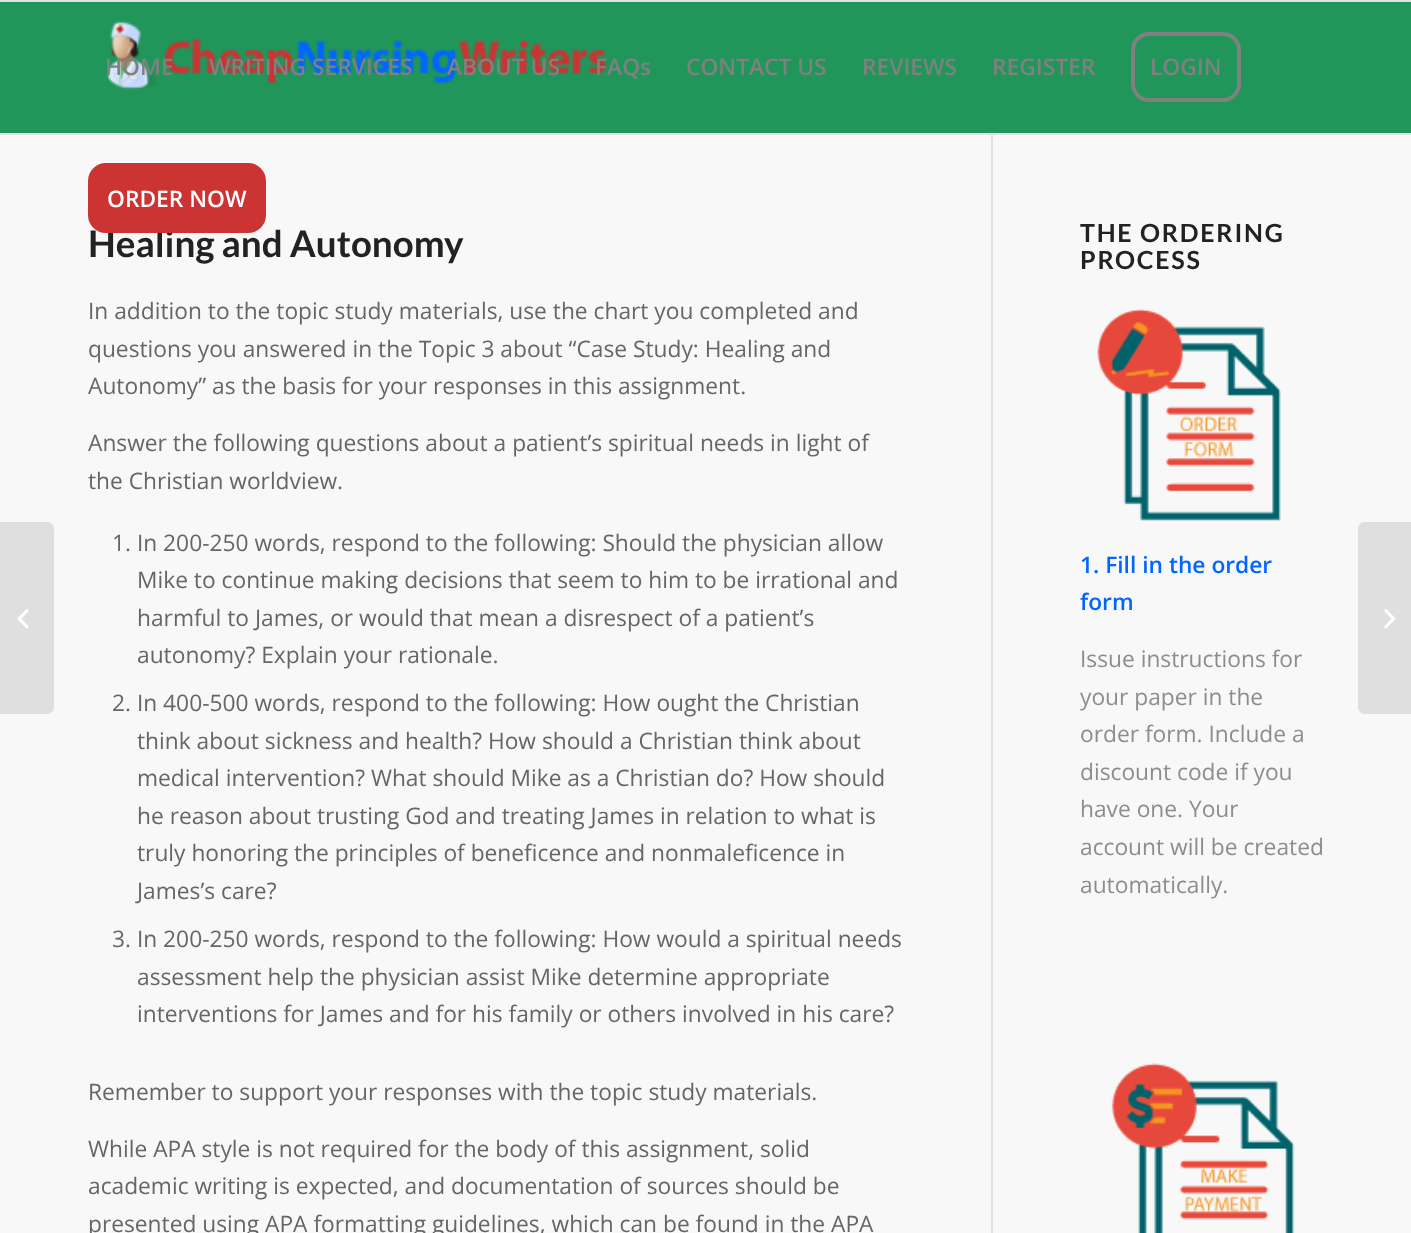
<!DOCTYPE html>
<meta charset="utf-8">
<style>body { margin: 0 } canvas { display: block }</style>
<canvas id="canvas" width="1411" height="1233"></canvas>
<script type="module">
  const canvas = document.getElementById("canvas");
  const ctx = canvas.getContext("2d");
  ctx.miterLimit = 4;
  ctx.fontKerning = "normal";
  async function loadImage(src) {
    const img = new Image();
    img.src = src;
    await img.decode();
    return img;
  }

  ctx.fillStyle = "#f8f8f8";
  ctx.fillRect(0, 0, 1411, 1233);
  ctx.fillStyle = "#e1e1e1";
  ctx.fillRect(991, 131, 2, 1102);
  ctx.fillStyle = "#21965b";
  ctx.fillRect(0, 2, 1411, 131);
  ctx.fillStyle = "#e1e1e1";
  ctx.fillRect(0, 0, 1411, 2);
  ctx.fillRect(0, 133, 1411, 2);
  ctx.drawImage(await loadImage("img1.png"), 106, 21, 502, 69);
  ctx.font = "600 22.75px Open Sans";
  ctx.fillStyle = "#808080";
  ctx.fillText("HOME", 105, 75);
  ctx.fillText("WRITING SERVICES", 209, 75);
  ctx.fillText("ABOUT US", 447, 75);
  ctx.fillText("FAQs", 595, 75);
  ctx.fillText("CONTACT US", 686, 75);
  ctx.fillText("REVIEWS", 862, 75);
  ctx.fillText("REGISTER", 992, 75);
  ctx.beginPath();
  ctx.roundRect(1133, 34, 106, 66, 16);
  ctx.strokeStyle = "#808080";
  ctx.lineWidth = 4;
  ctx.stroke();
  ctx.fillText("LOGIN", 1150, 75);
  ctx.font = "bold 36.75px Lato";
  ctx.fillStyle = "#222222";
  ctx.fillText("Healing and Autonomy", 88, 257);
  ctx.fillStyle = "#cc3333";
  ctx.beginPath();
  ctx.roundRect(90, 165, 174, 66, 16);
  ctx.fill();
  ctx.strokeStyle = "#cc3333";
  ctx.stroke();
  ctx.font = "600 22.75px Open Sans";
  ctx.fillStyle = "#ffffff";
  ctx.fillText("ORDER NOW", 107, 207);
  ctx.fillStyle = "#dfdfdf";
  ctx.beginPath();
  ctx.roundRect(0, 522, 54, 192, [0, 7, 7, 0]);
  ctx.fill();
  ctx.drawImage(await loadImage("img2.png"), 17, 609, 12, 20);
  ctx.font = "22.75px Open Sans";
  ctx.fillStyle = "#666666";
  ctx.fillText("In addition to the topic study materials, use the chart you completed and", 88, 319);
  ctx.fillText("questions you answered in the Topic 3 about “Case Study: Healing and", 88, 357);
  ctx.fillText("Autonomy” as the basis for your responses in this assignment.", 88, 394);
  ctx.fillText("Answer the following questions about a patient’s spiritual needs in light of", 88, 451);
  ctx.fillText("the Christian worldview.", 88, 489);
  ctx.fillText("1. In 200-250 words, respond to the following: Should the physician allow", 112, 551);
  ctx.fillText("Mike to continue making decisions that seem to him to be irrational and", 137, 588);
  ctx.fillText("harmful to James, or would that mean a disrespect of a patient’s", 137, 626);
  ctx.fillText("autonomy? Explain your rationale.", 137, 663);
  ctx.fillText("2. In 400-500 words, respond to the following: How ought the Christian", 112, 711);
  ctx.fillText("think about sickness and health? How should a Christian think about", 137, 749);
  ctx.fillText("medical intervention? What should Mike as a Christian do? How should", 137, 786);
  ctx.fillText("he reason about trusting God and treating James in relation to what is", 137, 824);
  ctx.fillText("truly honoring the principles of beneficence and nonmaleficence in", 137, 861);
  ctx.fillText("James’s care?", 137, 899);
  ctx.fillText("3. In 200-250 words, respond to the following: How would a spiritual needs", 112, 947);
  ctx.fillText("assessment help the physician assist Mike determine appropriate", 137, 985);
  ctx.fillText("interventions for James and for his family or others involved in his care?", 137, 1022);
  ctx.fillText("Remember to support your responses with the topic study materials.", 88, 1100);
  ctx.fillText("While APA style is not required for the body of this assignment, solid", 88, 1157);
  ctx.fillText("academic writing is expected, and documentation of sources should be", 88, 1194);
  ctx.fillText("presented using APA formatting guidelines, which can be found in the APA", 88, 1232);
  ctx.letterSpacing = "1.75px";
  ctx.font = "bold 25px Lato";
  ctx.fillStyle = "#222222";
  ctx.fillText("THE ORDERING", 1080, 242);
  ctx.fillText("PROCESS", 1080, 269);
  ctx.drawImage(await loadImage("img3.png"), 1097, 309, 184, 212);
  ctx.letterSpacing = "0px";
  ctx.font = "600 22.75px Open Sans";
  ctx.fillStyle = "#0066ff";
  ctx.fillText("1. Fill in the order", 1080, 573);
  ctx.fillText("form", 1080, 610);
  ctx.font = "22.75px Open Sans";
  ctx.fillStyle = "#8d8d8d";
  ctx.fillText("Issue instructions for", 1080, 667);
  ctx.fillText("your paper in the", 1080, 705);
  ctx.fillText("order form. Include a", 1080, 742);
  ctx.fillText("discount code if you", 1080, 780);
  ctx.fillText("have one. Your", 1080, 817);
  ctx.fillText("account will be created", 1080, 855);
  ctx.fillText("automatically.", 1080, 893);
  ctx.drawImage(await loadImage("img4.png"), 1111, 1063, 184, 170);
  ctx.fillStyle = "#dfdfdf";
  ctx.beginPath();
  ctx.moveTo(1365, 522);
  ctx.lineTo(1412, 522);
  ctx.lineTo(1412, 714);
  ctx.lineTo(1365, 714);
  ctx.bezierCurveTo(1361, 714, 1358, 711, 1358, 707);
  ctx.lineTo(1358, 529);
  ctx.bezierCurveTo(1358, 525, 1361, 522, 1365, 522);
  ctx.closePath();
  ctx.fill();
  ctx.drawImage(await loadImage("img5.png"), 1384, 609, 12, 20);
</script>
